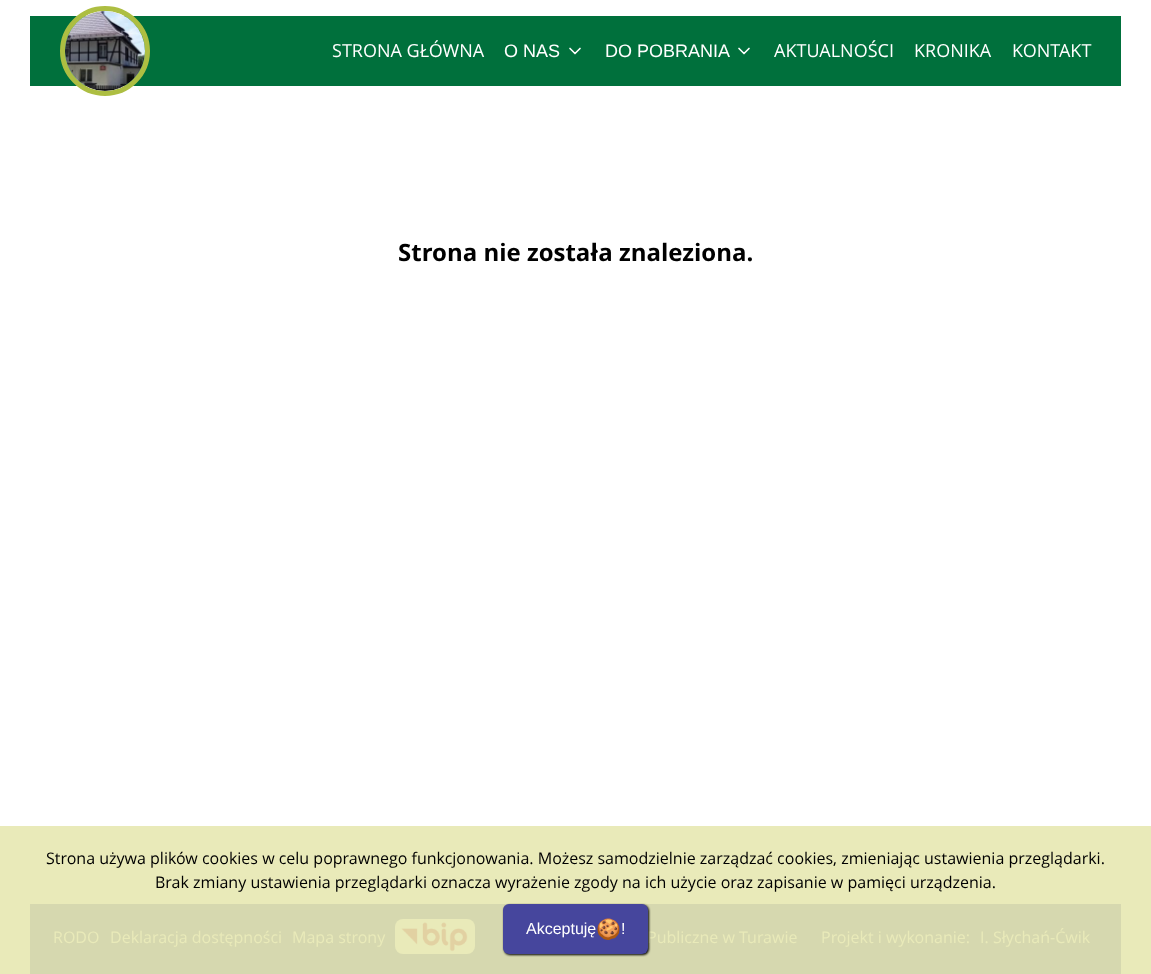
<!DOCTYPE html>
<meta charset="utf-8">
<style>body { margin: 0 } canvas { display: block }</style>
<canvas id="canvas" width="1151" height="974"></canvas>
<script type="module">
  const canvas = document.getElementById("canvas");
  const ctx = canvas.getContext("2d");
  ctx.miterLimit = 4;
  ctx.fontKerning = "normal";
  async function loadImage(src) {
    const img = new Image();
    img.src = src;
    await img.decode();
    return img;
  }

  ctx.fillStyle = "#ffffff";
  ctx.fillRect(0, 0, 1151, 974);
  ctx.fillStyle = "#e9eab9";
  ctx.fillRect(0, 826, 1151, 148);
  ctx.fillStyle = "#00703c";
  ctx.fillRect(30, 16, 1091, 70);
  ctx.beginPath();
  ctx.arc(105, 51, 42.5, 0, Math.PI * 2);
  ctx.strokeStyle = "#adbe42";
  ctx.lineWidth = 5;
  ctx.stroke();
  ctx.drawImage(await loadImage("img1.png"), 65, 11, 80, 80);
  ctx.font = "18px Open Sans";
  ctx.fillStyle = "#ffffff";
  ctx.fillText("STRONA GŁÓWNA", 332, 57);
  ctx.font = "18px Liberation Sans";
  ctx.fillText("O NAS", 504, 57);
  ctx.drawImage(await loadImage("img2.png"), 569, 47, 12, 8);
  ctx.fillText("DO POBRANIA", 605, 57);
  ctx.drawImage(await loadImage("img2.png"), 738, 47, 12, 8);
  ctx.font = "18px Open Sans";
  ctx.fillText("AKTUALNOŚCI", 774, 57);
  ctx.fillText("KRONIKA", 914, 57);
  ctx.fillText("KONTAKT", 1012, 57);
  ctx.font = "bold 24px Open Sans";
  ctx.fillStyle = "#000000";
  ctx.fillText("Strona nie została znaleziona.", 398, 261);
  ctx.fillStyle = "#d6d8af";
  ctx.fillRect(30, 904, 1091, 70);
  ctx.font = "16px Open Sans";
  ctx.fillStyle = "#e9eab9";
  ctx.fillText("RODO", 53, 943);
  ctx.fillText("Deklaracja dostępności", 110, 943);
  ctx.fillText("Mapa strony", 292, 943);
  ctx.beginPath();
  ctx.roundRect(395, 919, 80, 35, 8);
  ctx.fill();
  ctx.drawImage(await loadImage("img3.png"), 401, 922, 67, 30);
  ctx.fillText("Publiczne w Turawie", 647, 943);
  ctx.fillText("Projekt i wykonanie:", 821, 943);
  ctx.fillText("I. Słychań-Ćwik", 980, 943);
  ctx.fillStyle = "#000000";
  ctx.fillText("Strona używa plików cookies w celu poprawnego funkcjonowania. Możesz samodzielnie zarządzać cookies, zmieniając ustawienia przeglądarki.", 46, 864);
  ctx.fillText("Brak zmiany ustawienia przeglądarki oznacza wyrażenie zgody na ich użycie oraz zapisanie w pamięci urządzenia.", 155, 888);
  ctx.filter = "blur(1px)";
  ctx.beginPath();
  ctx.roundRect(504, 905, 145, 50, 6);
  ctx.fill();
  ctx.filter = "none";
  ctx.fillStyle = "#46469d";
  ctx.beginPath();
  ctx.roundRect(503, 904, 145, 50, 6);
  ctx.fill();
  ctx.font = "16px Liberation Sans";
  ctx.fillStyle = "#ffffff";
  ctx.fillText("Akceptuję", 526, 934);
  ctx.font = "20px Noto Color Emoji";
  ctx.fillText("🍪", 596, 936);
  ctx.font = "16px Liberation Sans";
  ctx.fillText("!", 621, 934);
</script>
